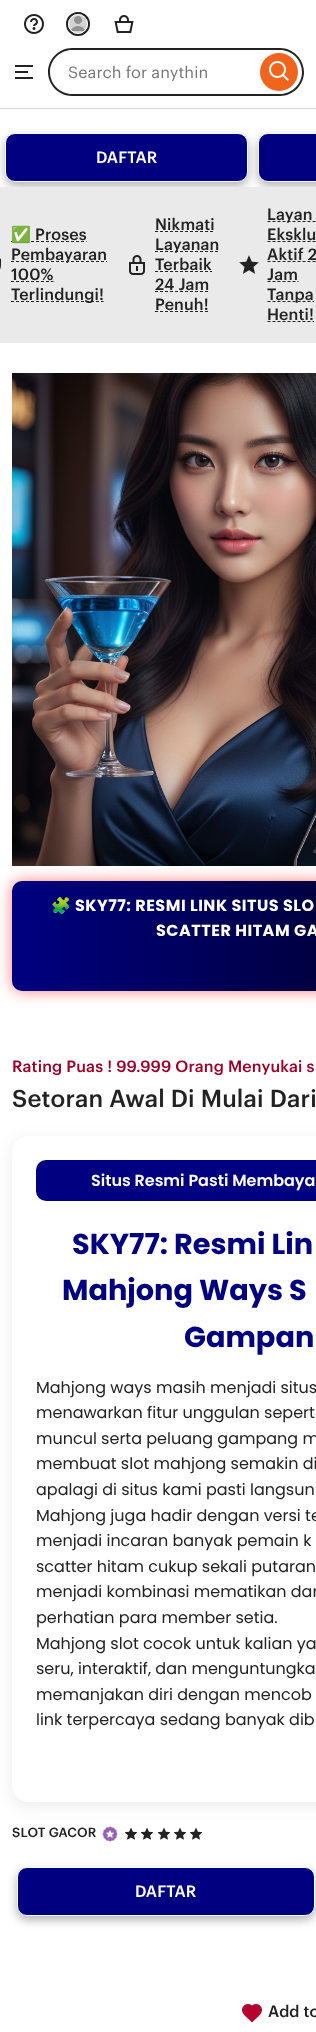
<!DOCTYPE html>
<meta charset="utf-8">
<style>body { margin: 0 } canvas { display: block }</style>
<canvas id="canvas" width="316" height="2032"></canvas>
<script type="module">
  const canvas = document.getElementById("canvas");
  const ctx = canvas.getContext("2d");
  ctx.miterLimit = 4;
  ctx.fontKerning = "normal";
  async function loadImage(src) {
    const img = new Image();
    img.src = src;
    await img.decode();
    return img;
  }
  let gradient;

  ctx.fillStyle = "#ffffff";
  ctx.fillRect(0, 0, 316, 2032);
  ctx.fillStyle = "#d4d4d4";
  ctx.fillRect(0, 108, 316, 1);
  ctx.drawImage(await loadImage("img1.png"), 24, 14, 20, 20);
  ctx.drawImage(await loadImage("img2.png"), 66, 12, 24, 24);
  ctx.beginPath();
  ctx.arc(78, 24, 11, 0, Math.PI * 2);
  ctx.strokeStyle = "#222222";
  ctx.lineWidth = 2;
  ctx.stroke();
  ctx.beginPath();
  ctx.arc(78, 24, 9.5, 0, Math.PI * 2);
  ctx.strokeStyle = "#ffffff";
  ctx.lineWidth = 1;
  ctx.stroke();
  ctx.drawImage(await loadImage("img3.png"), 114, 15, 20, 18);
  ctx.drawImage(await loadImage("img4.png"), 15, 65, 18, 14);
  ctx.fillStyle = "#222222";
  ctx.beginPath();
  ctx.moveTo(72, 48);
  ctx.lineTo(255, 48);
  ctx.lineTo(255, 96);
  ctx.lineTo(72, 96);
  ctx.bezierCurveTo(59, 96, 48, 85, 48, 72);
  ctx.bezierCurveTo(48, 59, 59, 48, 72, 48);
  ctx.closePath();
  ctx.moveTo(72, 50);
  ctx.lineTo(255, 50);
  ctx.lineTo(255, 94);
  ctx.lineTo(72, 94);
  ctx.bezierCurveTo(60, 94, 50, 84, 50, 72);
  ctx.bezierCurveTo(50, 60, 60, 50, 72, 50);
  ctx.closePath();
  ctx.fill("evenodd");
  ctx.font = "16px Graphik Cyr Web";
  ctx.fillStyle = "#757575";
  ctx.fillText("Search for anythin", 68, 78);
  ctx.fillStyle = "#222222";
  ctx.beginPath();
  ctx.moveTo(255, 48);
  ctx.lineTo(280, 48);
  ctx.bezierCurveTo(293, 48, 304, 59, 304, 72);
  ctx.bezierCurveTo(304, 85, 293, 96, 280, 96);
  ctx.lineTo(255, 96);
  ctx.closePath();
  ctx.moveTo(255, 50);
  ctx.lineTo(280, 50);
  ctx.bezierCurveTo(292, 50, 302, 60, 302, 72);
  ctx.bezierCurveTo(302, 84, 292, 94, 280, 94);
  ctx.lineTo(255, 94);
  ctx.closePath();
  ctx.fill("evenodd");
  ctx.fillStyle = "#f1641e";
  ctx.beginPath();
  ctx.arc(279, 72, 19, 0, Math.PI * 2);
  ctx.fill();
  ctx.drawImage(await loadImage("img5.png"), 269, 61, 20, 20);
  ctx.fillStyle = "rgba(0, 0, 0, 0.3)";
  ctx.filter = "blur(5px)";
  ctx.beginPath();
  ctx.roundRect(5, 137, 243, 49, 10);
  ctx.fill();
  ctx.filter = "none";
  ctx.fillStyle = "#000080";
  ctx.beginPath();
  ctx.roundRect(5.5, 133.5, 242, 48, 9.5);
  ctx.fill();
  ctx.strokeStyle = "#f4feff";
  ctx.stroke();
  ctx.font = "500 16px Graphik Cyr Web";
  ctx.fillStyle = "#ffffff";
  ctx.fillText("DAFTAR", 96, 163);
  ctx.fillStyle = "rgba(0, 0, 0, 0.3)";
  ctx.filter = "blur(5px)";
  ctx.beginPath();
  ctx.roundRect(258, 137, 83, 49, 10);
  ctx.fill();
  ctx.filter = "none";
  ctx.fillStyle = "#000080";
  ctx.beginPath();
  ctx.roundRect(258.5, 133.5, 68, 48, 9.5);
  ctx.fill();
  ctx.stroke();
  ctx.fillStyle = "#eaeaea";
  ctx.fillRect(0, 187, 316, 156);
  ctx.drawImage(await loadImage("img6.png"), 0, 258, 1, 12);
  ctx.beginPath();
  ctx.moveTo(11, 241.5);
  ctx.lineTo(86.5, 241.5);
  ctx.strokeStyle = "#222222";
  ctx.setLineDash([3, 2]);
  ctx.stroke();
  ctx.letterSpacing = "0.1px";
  ctx.font = "16px Noto Color Emoji";
  ctx.fillStyle = "#222222";
  ctx.fillText("✅", 11, 240);
  ctx.font = "500 16px Graphik Cyr Web";
  ctx.fillText("Proses", 35, 240);
  ctx.beginPath();
  ctx.moveTo(11, 261.5);
  ctx.lineTo(107, 261.5);
  ctx.stroke();
  ctx.fillText("Pembayaran", 11, 260);
  ctx.fillText("100%", 11, 280);
  ctx.beginPath();
  ctx.moveTo(11, 281.5);
  ctx.lineTo(53.5, 281.5);
  ctx.stroke();
  ctx.beginPath();
  ctx.moveTo(11, 301.5);
  ctx.lineTo(103.5, 301.5);
  ctx.stroke();
  ctx.fillText("Terlindungi!", 11, 300);
  ctx.drawImage(await loadImage("img7.png"), 129, 255, 16, 20);
  ctx.fillText("Nikmati", 155, 230);
  ctx.beginPath();
  ctx.moveTo(155, 231.5);
  ctx.lineTo(214.5, 231.5);
  ctx.stroke();
  ctx.beginPath();
  ctx.moveTo(155, 251.5);
  ctx.lineTo(219.5, 251.5);
  ctx.stroke();
  ctx.fillText("Layanan", 155, 250);
  ctx.fillText("Terbaik", 155, 270);
  ctx.beginPath();
  ctx.moveTo(155, 271.5);
  ctx.lineTo(212, 271.5);
  ctx.stroke();
  ctx.fillText("24 Jam", 155, 290);
  ctx.beginPath();
  ctx.moveTo(155, 291.5);
  ctx.lineTo(209.5, 291.5);
  ctx.stroke();
  ctx.fillText("Penuh!", 155, 310);
  ctx.beginPath();
  ctx.moveTo(155, 311.5);
  ctx.lineTo(208.5, 311.5);
  ctx.stroke();
  ctx.drawImage(await loadImage("img8.png"), 239, 255, 20, 19);
  ctx.beginPath();
  ctx.moveTo(267.5, 221.5);
  ctx.lineTo(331.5, 221.5);
  ctx.stroke();
  ctx.fillText("Layan", 267, 220);
  ctx.fillText("Eksklu", 267, 240);
  ctx.beginPath();
  ctx.moveTo(267.5, 241.5);
  ctx.lineTo(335, 241.5);
  ctx.stroke();
  ctx.fillText("Aktif 2", 267, 260);
  ctx.beginPath();
  ctx.moveTo(267.5, 261.5);
  ctx.lineTo(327.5, 261.5);
  ctx.stroke();
  ctx.fillText("Jam", 267, 280);
  ctx.beginPath();
  ctx.moveTo(267.5, 281.5);
  ctx.lineTo(298.5, 281.5);
  ctx.stroke();
  ctx.beginPath();
  ctx.moveTo(267.5, 301.5);
  ctx.lineTo(314, 301.5);
  ctx.stroke();
  ctx.fillText("Tanpa", 267, 300);
  ctx.fillText("Henti!", 267, 320);
  ctx.beginPath();
  ctx.moveTo(267.5, 321.5);
  ctx.lineTo(314, 321.5);
  ctx.stroke();
  ctx.fillStyle = "rgba(255, 0, 0, 0.5)";
  ctx.filter = "blur(7.5px)";
  ctx.beginPath();
  ctx.roundRect(12, 881, 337, 110, 10);
  ctx.fill();
  ctx.filter = "none";
  ctx.drawImage(await loadImage("img9.png"), 12, 373, 304, 493);
  gradient = ctx.createLinearGradient(12, 936, 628, 936);
  gradient.addColorStop(0, "#000080");
  gradient.addColorStop(1, "#000000");
  ctx.fillStyle = gradient;
  ctx.beginPath();
  ctx.roundRect(12, 881, 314, 110, 10);
  ctx.fill();
  ctx.letterSpacing = "0.5px";
  ctx.font = "bold 16px Noto Color Emoji";
  ctx.fillStyle = "#ffffff";
  ctx.fillText("🧩", 51, 911);
  ctx.font = "bold 16px Poppins";
  ctx.fillText("SKY77: RESMI LINK SITUS SLO", 75, 911);
  ctx.fillText("SCATTER HITAM GA", 156, 936);
  ctx.letterSpacing = "0.1px";
  ctx.font = "500 16px Graphik Cyr Web";
  ctx.fillStyle = "#9a0027";
  ctx.fillText("Rating Puas ! 99.999 Orang Menyukai s", 12, 1072);
  ctx.font = "500 24px Graphik Cyr Web";
  ctx.fillStyle = "#222222";
  ctx.fillText("Setoran Awal Di Mulai Dari", 12, 1107);
  ctx.fillStyle = "rgba(0, 0, 0, 0.08)";
  ctx.filter = "blur(8px)";
  ctx.beginPath();
  ctx.roundRect(12, 1140, 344, 666, 16);
  ctx.fill();
  ctx.filter = "none";
  ctx.fillStyle = "#ffffff";
  ctx.beginPath();
  ctx.roundRect(12, 1136, 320, 666, 16);
  ctx.fill();
  ctx.fillStyle = "#000080";
  ctx.beginPath();
  ctx.roundRect(36, 1160, 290, 41, 10);
  ctx.fill();
  ctx.letterSpacing = "0px";
  ctx.font = "600 16px Poppins";
  ctx.fillStyle = "#ffffff";
  ctx.fillText("Situs Resmi Pasti Membaya", 91, 1186);
  ctx.font = "bold 28.75px Poppins";
  ctx.fillStyle = "#000080";
  ctx.fillText("SKY77: Resmi Lin", 72, 1254);
  ctx.fillText("Mahjong Ways S", 62, 1300);
  ctx.fillText("Gampan", 184, 1347);
  ctx.font = "16px Poppins";
  ctx.fillStyle = "#222222";
  ctx.fillText("Mahjong ways masih menjadi situs", 36, 1393);
  ctx.fillText("menawarkan fitur unggulan sepert", 36, 1418);
  ctx.fillText("muncul serta peluang gampang m", 36, 1444);
  ctx.fillText("membuat slot mahjong semakin di", 36, 1469);
  ctx.fillText("apalagi di situs kami pasti langsun", 36, 1495);
  ctx.fillText("Mahjong juga hadir dengan versi te", 36, 1521);
  ctx.fillText("menjadi incaran banyak pemain k", 36, 1546);
  ctx.fillText("scatter hitam cukup sekali putaran", 36, 1572);
  ctx.fillText("menjadi kombinasi mematikan dar", 36, 1597);
  ctx.fillText("perhatian para member setia.", 36, 1623);
  ctx.fillText("Mahjong slot cocok untuk kalian ya", 36, 1649);
  ctx.fillText("seru, interaktif, dan menguntungka", 36, 1674);
  ctx.fillText("memanjakan diri dengan mencob", 36, 1700);
  ctx.fillText("link terpercaya sedang banyak dib", 36, 1725);
  ctx.letterSpacing = "0.1px";
  ctx.font = "500 13px Graphik Cyr Web";
  ctx.fillText("SLOT GACOR", 12, 1837);
  ctx.drawImage(await loadImage("img10.png"), 102, 1826, 16, 16);
  ctx.drawImage(await loadImage("img11.png"), 125, 1828, 12, 12);
  ctx.drawImage(await loadImage("img11.png"), 141, 1828, 12, 12);
  ctx.drawImage(await loadImage("img11.png"), 158, 1828, 12, 12);
  ctx.drawImage(await loadImage("img11.png"), 174, 1828, 12, 12);
  ctx.drawImage(await loadImage("img11.png"), 190, 1828, 12, 12);
  ctx.fillStyle = "rgba(0, 0, 0, 0.3)";
  ctx.filter = "blur(5px)";
  ctx.beginPath();
  ctx.roundRect(17, 1871, 298, 49, 10);
  ctx.fill();
  ctx.filter = "none";
  ctx.fillStyle = "#000080";
  ctx.beginPath();
  ctx.roundRect(17.5, 1867.5, 297, 48, 9.5);
  ctx.fill();
  ctx.strokeStyle = "#f4feff";
  ctx.setLineDash([]);
  ctx.stroke();
  ctx.letterSpacing = "0px";
  ctx.font = "500 16px Graphik Cyr Web";
  ctx.fillStyle = "#ffffff";
  ctx.fillText("DAFTAR", 135, 1897);
  ctx.drawImage(await loadImage("img12.png"), 242, 2004, 20, 19);
  ctx.fillStyle = "#222222";
  ctx.fillText("Add to", 268, 2017);
</script>
